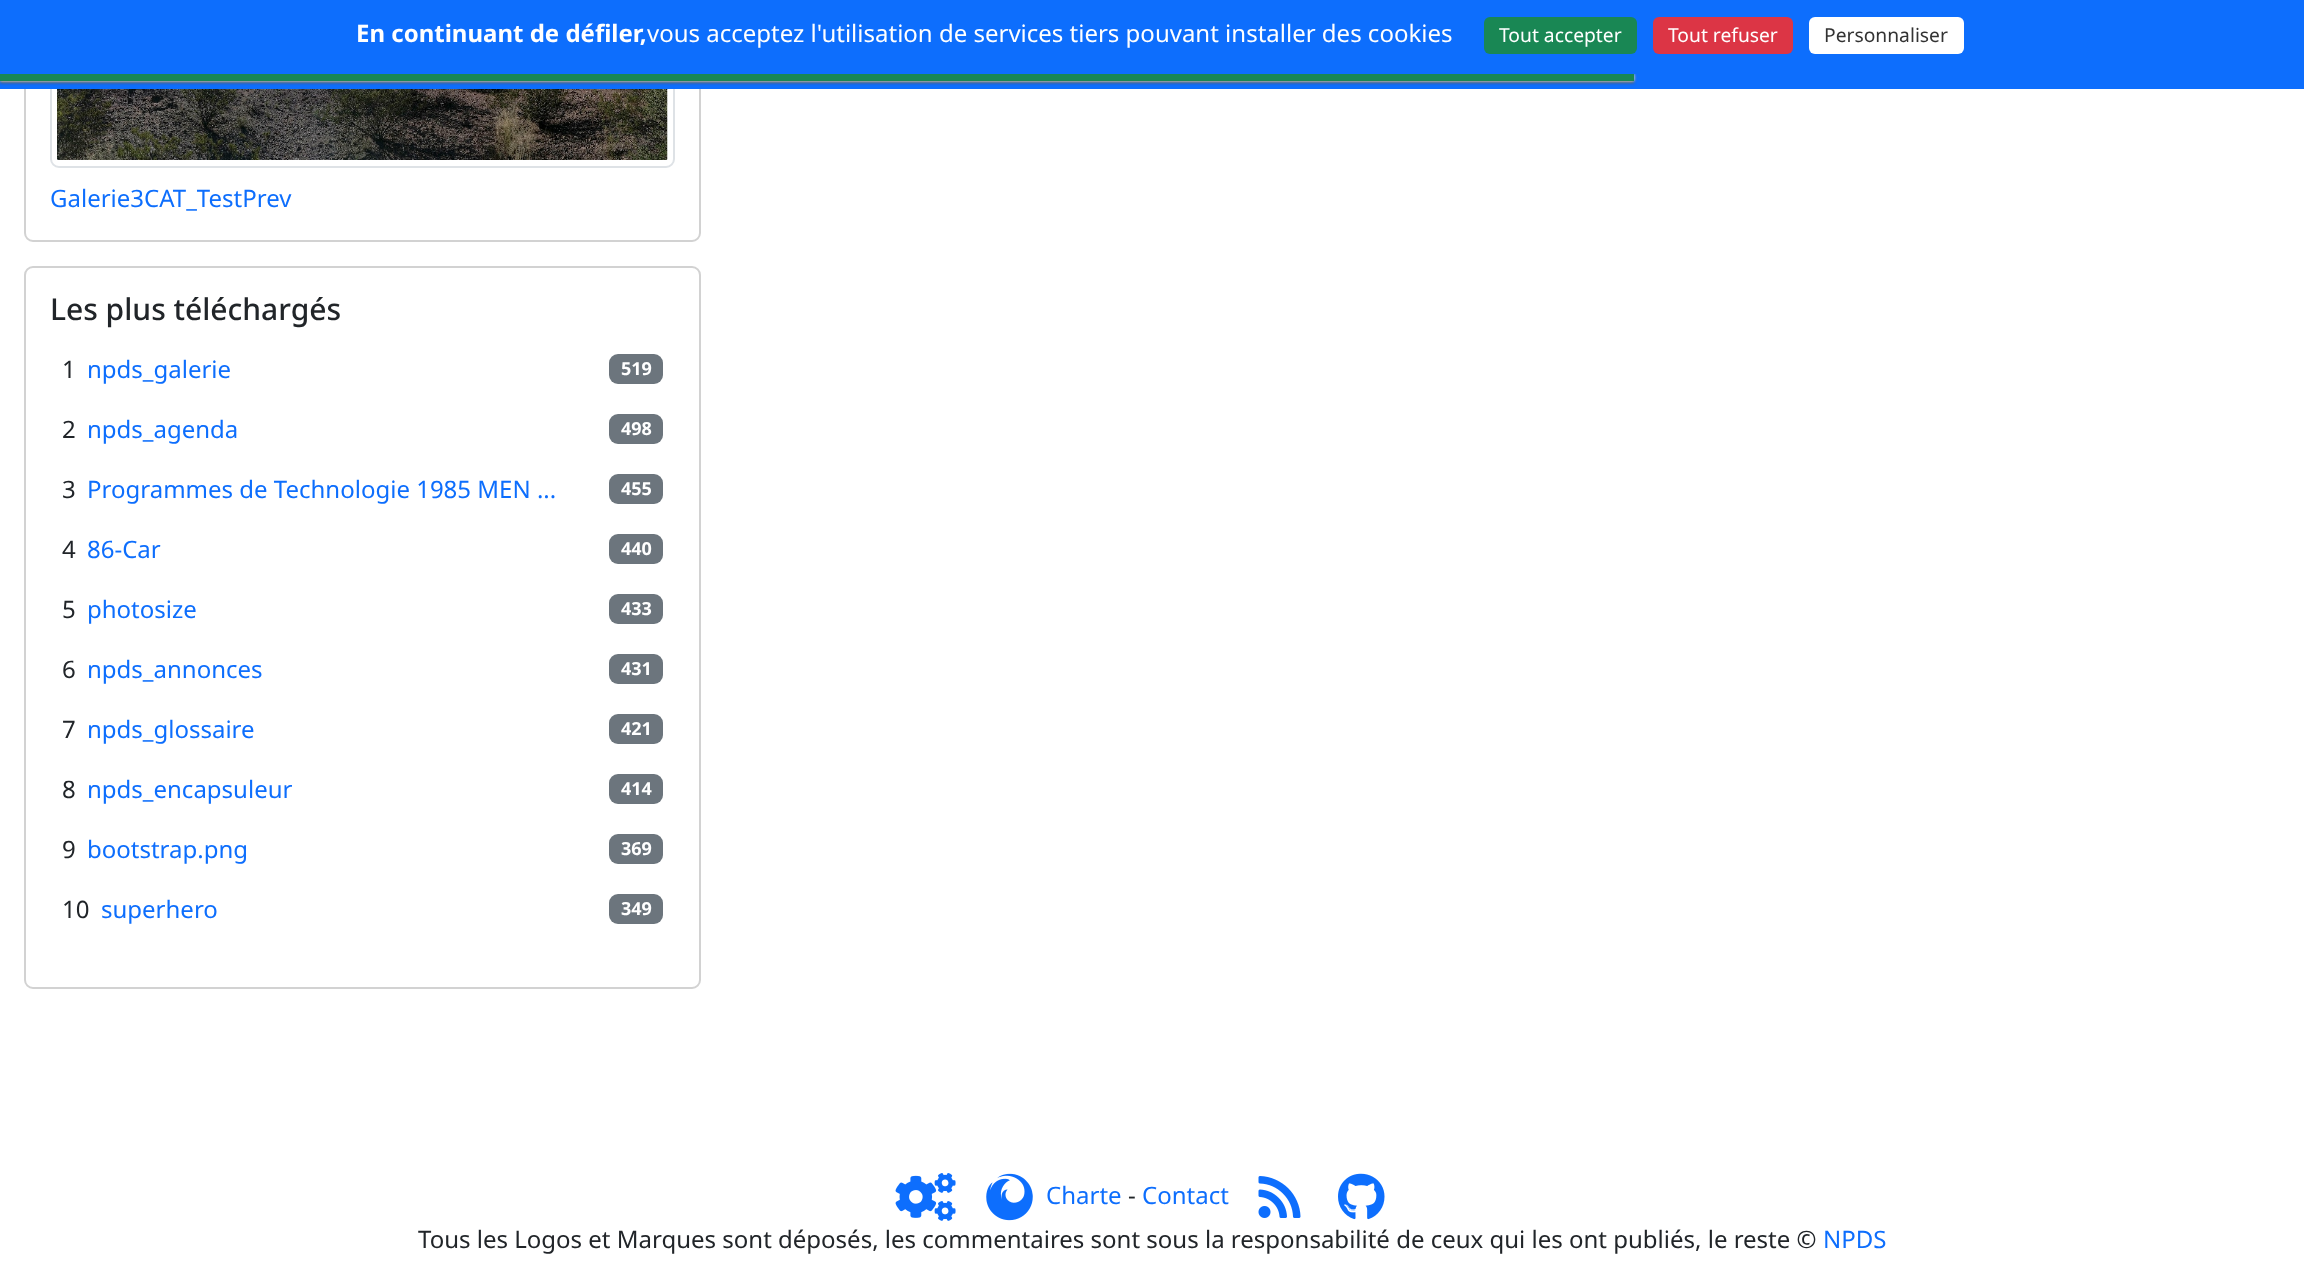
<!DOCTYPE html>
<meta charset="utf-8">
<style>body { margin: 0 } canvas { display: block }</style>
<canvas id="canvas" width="2304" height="1281"></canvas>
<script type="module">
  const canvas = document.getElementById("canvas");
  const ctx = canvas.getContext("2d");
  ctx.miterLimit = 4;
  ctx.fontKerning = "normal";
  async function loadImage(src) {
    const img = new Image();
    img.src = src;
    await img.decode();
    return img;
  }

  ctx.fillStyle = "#ffffff";
  ctx.fillRect(0, 0, 2304, 1281);
  ctx.beginPath();
  ctx.roundRect(25, -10, 675, 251, 8);
  ctx.strokeStyle = "#d2d2d2";
  ctx.lineWidth = 2;
  ctx.stroke();
  ctx.beginPath();
  ctx.roundRect(51, -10, 623, 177, 8);
  ctx.strokeStyle = "#dee2e6";
  ctx.stroke();
  ctx.fillStyle = "#0d6efd";
  ctx.fillRect(0, 74, 2304, 15);
  ctx.fillStyle = "#555555";
  ctx.filter = "blur(1.5px)";
  ctx.beginPath();
  ctx.rect(0, 75, 1634, 8);
  ctx.fill();
  ctx.filter = "none";
  ctx.fillStyle = "#ffffff";
  ctx.filter = "blur(1.5px)";
  ctx.beginPath();
  ctx.rect(0, 74, 1634, 7);
  ctx.fill();
  ctx.filter = "none";
  ctx.fillStyle = "#0d6efd";
  ctx.fillRect(0, 0, 2304, 74);
  ctx.font = "bold 24px Noto Sans";
  ctx.fillStyle = "#ffffff";
  ctx.fillText("En continuant de défiler,", 356, 42);
  ctx.font = "24px Noto Sans";
  ctx.fillText("vous acceptez l'utilisation de services tiers pouvant installer des cookies", 647, 42);
  ctx.fillStyle = "#198754";
  ctx.beginPath();
  ctx.roundRect(1484, 17, 153, 37, 6);
  ctx.fill();
  ctx.font = "19.25px Noto Sans";
  ctx.fillStyle = "#ffffff";
  ctx.fillText("Tout accepter", 1499, 42);
  ctx.fillStyle = "#dc3545";
  ctx.beginPath();
  ctx.roundRect(1653, 17, 140, 37, 6);
  ctx.fill();
  ctx.fillStyle = "#ffffff";
  ctx.fillText("Tout refuser", 1668, 42);
  ctx.beginPath();
  ctx.roundRect(1809, 17, 155, 37, 6);
  ctx.fill();
  ctx.fillStyle = "#333333";
  ctx.fillText("Personnaliser", 1824, 42);
  ctx.fillStyle = "#198754";
  ctx.fillRect(0, 74, 1634, 7);
  ctx.drawImage(await loadImage("img1.png"), 57, 89, 611, 71);
  ctx.font = "24px Noto Sans";
  ctx.fillStyle = "#0d6efd";
  ctx.fillText("Galerie3CAT_TestPrev", 50, 207);
  ctx.beginPath();
  ctx.roundRect(25, 267, 675, 721, 8);
  ctx.strokeStyle = "#d2d2d2";
  ctx.stroke();
  ctx.font = "500 30px Noto Sans";
  ctx.fillStyle = "#212529";
  ctx.fillText("Les plus téléchargés", 50, 320);
  ctx.font = "24px Noto Sans";
  ctx.fillText("1", 62, 378);
  ctx.fillStyle = "#0d6efd";
  ctx.fillText("npds_galerie", 87, 378);
  ctx.fillStyle = "#6c757d";
  ctx.beginPath();
  ctx.roundRect(609, 354, 54, 30, 9);
  ctx.fill();
  ctx.font = "bold 18px Noto Sans";
  ctx.fillStyle = "#ffffff";
  ctx.fillText("519", 621, 375);
  ctx.font = "24px Noto Sans";
  ctx.fillStyle = "#212529";
  ctx.fillText("2", 62, 438);
  ctx.fillStyle = "#0d6efd";
  ctx.fillText("npds_agenda", 87, 438);
  ctx.fillStyle = "#6c757d";
  ctx.beginPath();
  ctx.roundRect(609, 414, 54, 30, 9);
  ctx.fill();
  ctx.font = "bold 18px Noto Sans";
  ctx.fillStyle = "#ffffff";
  ctx.fillText("498", 621, 435);
  ctx.font = "24px Noto Sans";
  ctx.fillStyle = "#212529";
  ctx.fillText("3", 62, 498);
  ctx.fillStyle = "#0d6efd";
  ctx.fillText("Programmes de Technologie 1985 MEN ...", 87, 498);
  ctx.fillStyle = "#6c757d";
  ctx.beginPath();
  ctx.roundRect(609, 474, 54, 30, 9);
  ctx.fill();
  ctx.font = "bold 18px Noto Sans";
  ctx.fillStyle = "#ffffff";
  ctx.fillText("455", 621, 495);
  ctx.font = "24px Noto Sans";
  ctx.fillStyle = "#212529";
  ctx.fillText("4", 62, 558);
  ctx.fillStyle = "#0d6efd";
  ctx.fillText("86-Car", 87, 558);
  ctx.fillStyle = "#6c757d";
  ctx.beginPath();
  ctx.roundRect(609, 534, 54, 30, 9);
  ctx.fill();
  ctx.font = "bold 18px Noto Sans";
  ctx.fillStyle = "#ffffff";
  ctx.fillText("440", 621, 555);
  ctx.font = "24px Noto Sans";
  ctx.fillStyle = "#212529";
  ctx.fillText("5", 62, 618);
  ctx.fillStyle = "#0d6efd";
  ctx.fillText("photosize", 87, 618);
  ctx.fillStyle = "#6c757d";
  ctx.beginPath();
  ctx.roundRect(609, 594, 54, 30, 9);
  ctx.fill();
  ctx.font = "bold 18px Noto Sans";
  ctx.fillStyle = "#ffffff";
  ctx.fillText("433", 621, 615);
  ctx.font = "24px Noto Sans";
  ctx.fillStyle = "#212529";
  ctx.fillText("6", 62, 678);
  ctx.fillStyle = "#0d6efd";
  ctx.fillText("npds_annonces", 87, 678);
  ctx.fillStyle = "#6c757d";
  ctx.beginPath();
  ctx.roundRect(609, 654, 54, 30, 9);
  ctx.fill();
  ctx.font = "bold 18px Noto Sans";
  ctx.fillStyle = "#ffffff";
  ctx.fillText("431", 621, 675);
  ctx.font = "24px Noto Sans";
  ctx.fillStyle = "#212529";
  ctx.fillText("7", 62, 738);
  ctx.fillStyle = "#0d6efd";
  ctx.fillText("npds_glossaire", 87, 738);
  ctx.fillStyle = "#6c757d";
  ctx.beginPath();
  ctx.roundRect(609, 714, 54, 30, 9);
  ctx.fill();
  ctx.font = "bold 18px Noto Sans";
  ctx.fillStyle = "#ffffff";
  ctx.fillText("421", 621, 735);
  ctx.font = "24px Noto Sans";
  ctx.fillStyle = "#212529";
  ctx.fillText("8", 62, 798);
  ctx.fillStyle = "#0d6efd";
  ctx.fillText("npds_encapsuleur", 87, 798);
  ctx.fillStyle = "#6c757d";
  ctx.beginPath();
  ctx.roundRect(609, 774, 54, 30, 9);
  ctx.fill();
  ctx.font = "bold 18px Noto Sans";
  ctx.fillStyle = "#ffffff";
  ctx.fillText("414", 621, 795);
  ctx.font = "24px Noto Sans";
  ctx.fillStyle = "#212529";
  ctx.fillText("9", 62, 858);
  ctx.fillStyle = "#0d6efd";
  ctx.fillText("bootstrap.png", 87, 858);
  ctx.fillStyle = "#6c757d";
  ctx.beginPath();
  ctx.roundRect(609, 834, 54, 30, 9);
  ctx.fill();
  ctx.font = "bold 18px Noto Sans";
  ctx.fillStyle = "#ffffff";
  ctx.fillText("369", 621, 855);
  ctx.font = "24px Noto Sans";
  ctx.fillStyle = "#212529";
  ctx.fillText("10", 62, 918);
  ctx.fillStyle = "#0d6efd";
  ctx.fillText("superhero", 101, 918);
  ctx.fillStyle = "#6c757d";
  ctx.beginPath();
  ctx.roundRect(609, 894, 54, 30, 9);
  ctx.fill();
  ctx.font = "bold 18px Noto Sans";
  ctx.fillStyle = "#ffffff";
  ctx.fillText("349", 621, 915);
  ctx.drawImage(await loadImage("img2.png"), 895, 1173, 61, 48);
  ctx.drawImage(await loadImage("img3.png"), 986, 1173, 47, 48);
  ctx.font = "24px Noto Sans";
  ctx.fillStyle = "#0d6efd";
  ctx.fillText("Charte", 1046, 1204);
  ctx.fillStyle = "#212529";
  ctx.fillText("-", 1128, 1204);
  ctx.fillStyle = "#0d6efd";
  ctx.fillText("Contact", 1142, 1204);
  ctx.drawImage(await loadImage("img4.png"), 1258, 1176, 43, 42);
  ctx.drawImage(await loadImage("img5.png"), 1338, 1173, 47, 47);
  ctx.fillStyle = "#212529";
  ctx.fillText("Tous les Logos et Marques sont déposés, les commentaires sont sous la responsabilité de ceux qui les ont publiés, le reste ©", 418, 1248);
  ctx.fillStyle = "#0d6efd";
  ctx.fillText("NPDS", 1823, 1248);
</script>
